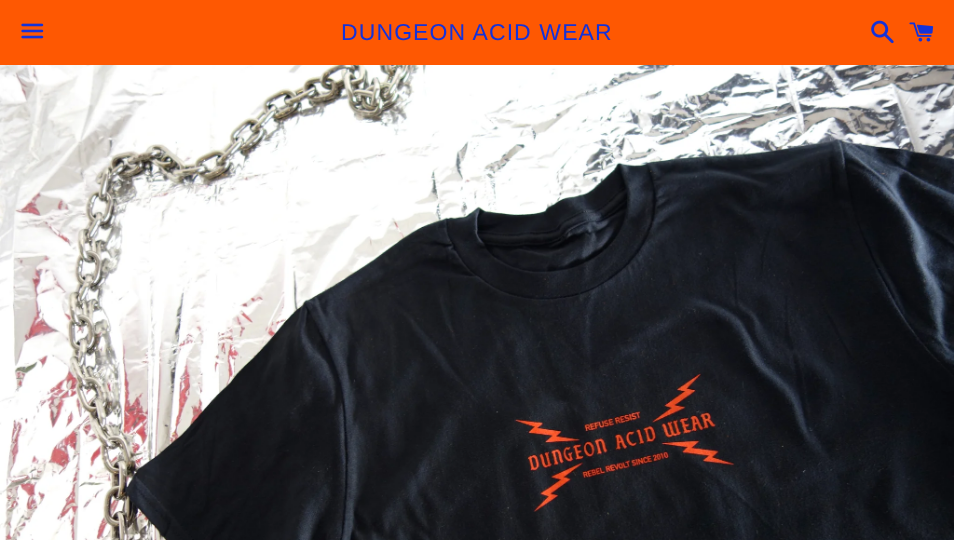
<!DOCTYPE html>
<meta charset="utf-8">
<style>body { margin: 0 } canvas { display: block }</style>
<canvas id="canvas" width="954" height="540"></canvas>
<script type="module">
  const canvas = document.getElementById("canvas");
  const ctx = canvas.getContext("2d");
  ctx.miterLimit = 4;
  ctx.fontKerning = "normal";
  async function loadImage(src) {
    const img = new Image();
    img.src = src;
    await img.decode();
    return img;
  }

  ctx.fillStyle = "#fe5802";
  ctx.fillRect(0, 0, 954, 540);
  ctx.drawImage(await loadImage("img1.png"), 21, 23, 23, 16);
  ctx.letterSpacing = "1.1px";
  ctx.font = "23px Liberation Sans";
  ctx.fillStyle = "#1332da";
  ctx.fillText("DUNGEON ACID WEAR", 341, 40);
  ctx.drawImage(await loadImage("img2.png"), 871, 20, 23, 24);
  ctx.drawImage(await loadImage("img3.png"), 909, 22, 25, 20);
  ctx.drawImage(await loadImage("img4.png"), 0, 65, 954, 475);
</script>
